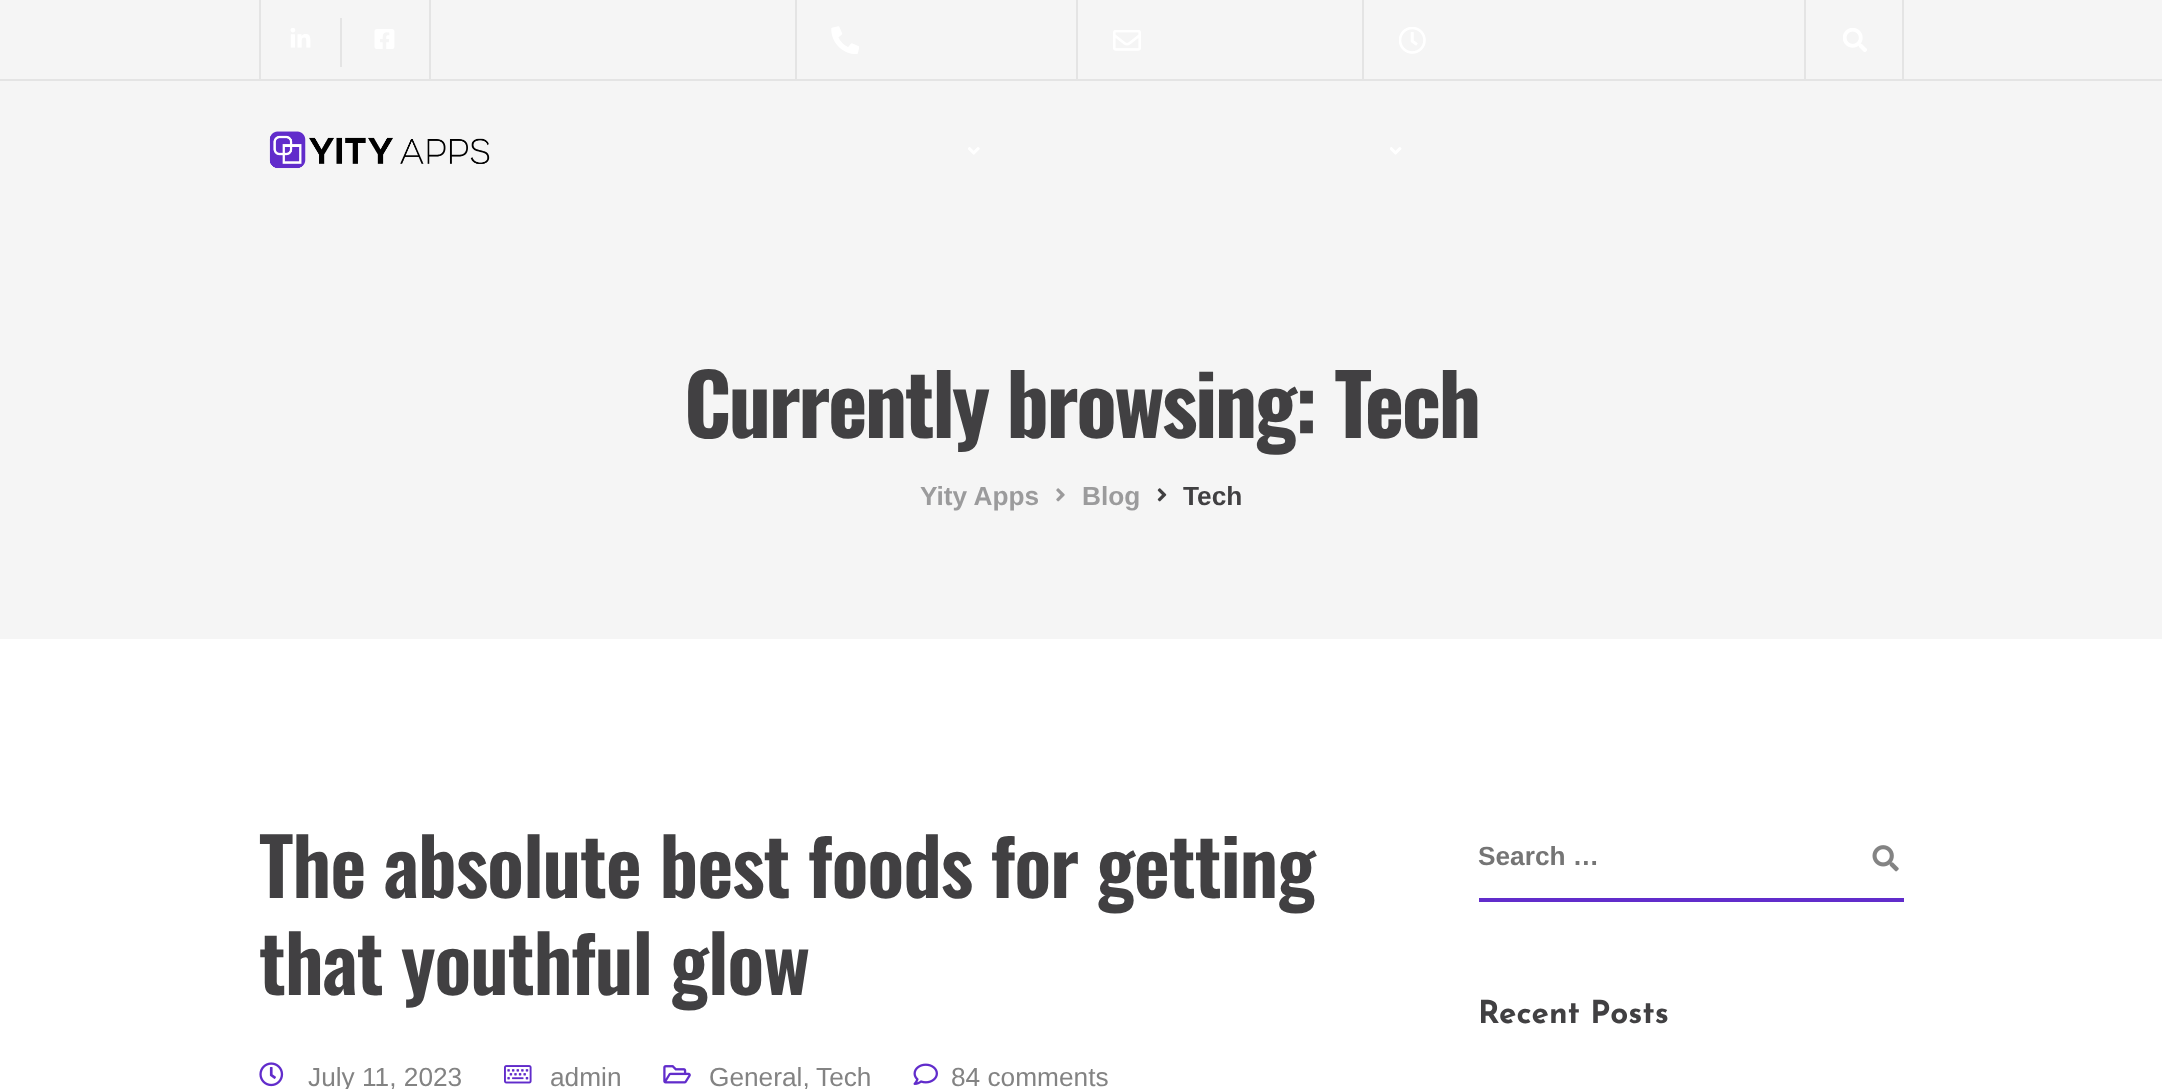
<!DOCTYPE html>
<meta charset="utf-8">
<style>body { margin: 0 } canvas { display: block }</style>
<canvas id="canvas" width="2162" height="1089"></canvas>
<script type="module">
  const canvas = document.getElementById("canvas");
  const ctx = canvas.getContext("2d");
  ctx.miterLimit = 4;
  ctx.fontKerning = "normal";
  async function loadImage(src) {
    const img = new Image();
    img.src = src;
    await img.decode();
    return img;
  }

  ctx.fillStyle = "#ffffff";
  ctx.fillRect(0, 0, 2162, 1089);
  ctx.fillStyle = "#f5f5f5";
  ctx.fillRect(0, 0, 2162, 639);
  ctx.fillStyle = "#e4e4e4";
  ctx.fillRect(0, 79, 2162, 2);
  ctx.fillRect(429, 0, 2, 79);
  ctx.fillRect(259, 0, 2, 79);
  ctx.fillRect(340, 18, 2, 49);
  ctx.drawImage(await loadImage("img1.png"), 290, 28, 21, 20);
  ctx.drawImage(await loadImage("img2.png"), 374, 29, 21, 20);
  ctx.fillRect(795, 0, 2, 79);
  ctx.fillRect(1076, 0, 2, 79);
  ctx.drawImage(await loadImage("img3.png"), 831, 26, 28, 28);
  ctx.fillRect(1362, 0, 2, 79);
  ctx.drawImage(await loadImage("img4.png"), 1113, 30, 28, 21);
  ctx.drawImage(await loadImage("img5.png"), 1399, 27, 27, 27);
  ctx.fillRect(1902, 0, 2, 79);
  ctx.fillRect(1804, 0, 2, 79);
  ctx.drawImage(await loadImage("img6.png"), 1843, 28, 24, 24);
  ctx.drawImage(await loadImage("img7.png"), 269, 131, 221, 38);
  ctx.drawImage(await loadImage("img8.png"), 968, 147, 12, 8);
  ctx.drawImage(await loadImage("img9.png"), 1390, 147, 12, 8);
  ctx.letterSpacing = "-2.5px";
  ctx.font = "bold 84px Oswald";
  ctx.fillStyle = "#414042";
  ctx.fillText("Currently browsing: Tech", 684, 438);
  ctx.letterSpacing = "0px";
  ctx.font = "bold 26.25px Liberation Sans";
  ctx.fillStyle = "#9b9b9c";
  ctx.fillText("Yity Apps", 920, 505);
  ctx.drawImage(await loadImage("img10.png"), 1056, 488, 9, 14);
  ctx.fillText("Blog", 1082, 505);
  ctx.drawImage(await loadImage("img11.png"), 1157, 488, 10, 14);
  ctx.fillStyle = "#414042";
  ctx.fillText("Tech", 1183, 505);
  ctx.letterSpacing = "-1.15px";
  ctx.font = "600 78.75px Oswald";
  ctx.fillText("The absolute best foods for getting", 259, 898);
  ctx.fillText("that youthful glow", 259, 995);
  ctx.drawImage(await loadImage("img12.png"), 259, 1062, 25, 25);
  ctx.letterSpacing = "0px";
  ctx.font = "26.25px Liberation Sans";
  ctx.fillStyle = "#838383";
  ctx.fillText("July 11, 2023", 308, 1086);
  ctx.drawImage(await loadImage("img13.png"), 504, 1065, 28, 19);
  ctx.fillText("admin", 550, 1086);
  ctx.drawImage(await loadImage("img14.png"), 663, 1065, 28, 19);
  ctx.fillText("General,", 709, 1086);
  ctx.fillText("Tech", 816, 1086);
  ctx.drawImage(await loadImage("img15.png"), 913, 1063, 25, 22);
  ctx.fillText("84 comments", 951, 1086);
  ctx.fillStyle = "#612ccb";
  ctx.fillRect(1479, 898, 425, 4);
  ctx.font = "bold 26.25px Liberation Sans";
  ctx.fillStyle = "#757575";
  ctx.fillText("Search …", 1478, 865);
  ctx.drawImage(await loadImage("img16.png"), 1872, 845, 27, 27);
  ctx.font = "bold 31.5px Josefin Sans";
  ctx.fillStyle = "#414042";
  ctx.fillText("Recent Posts", 1478, 1023);
</script>
